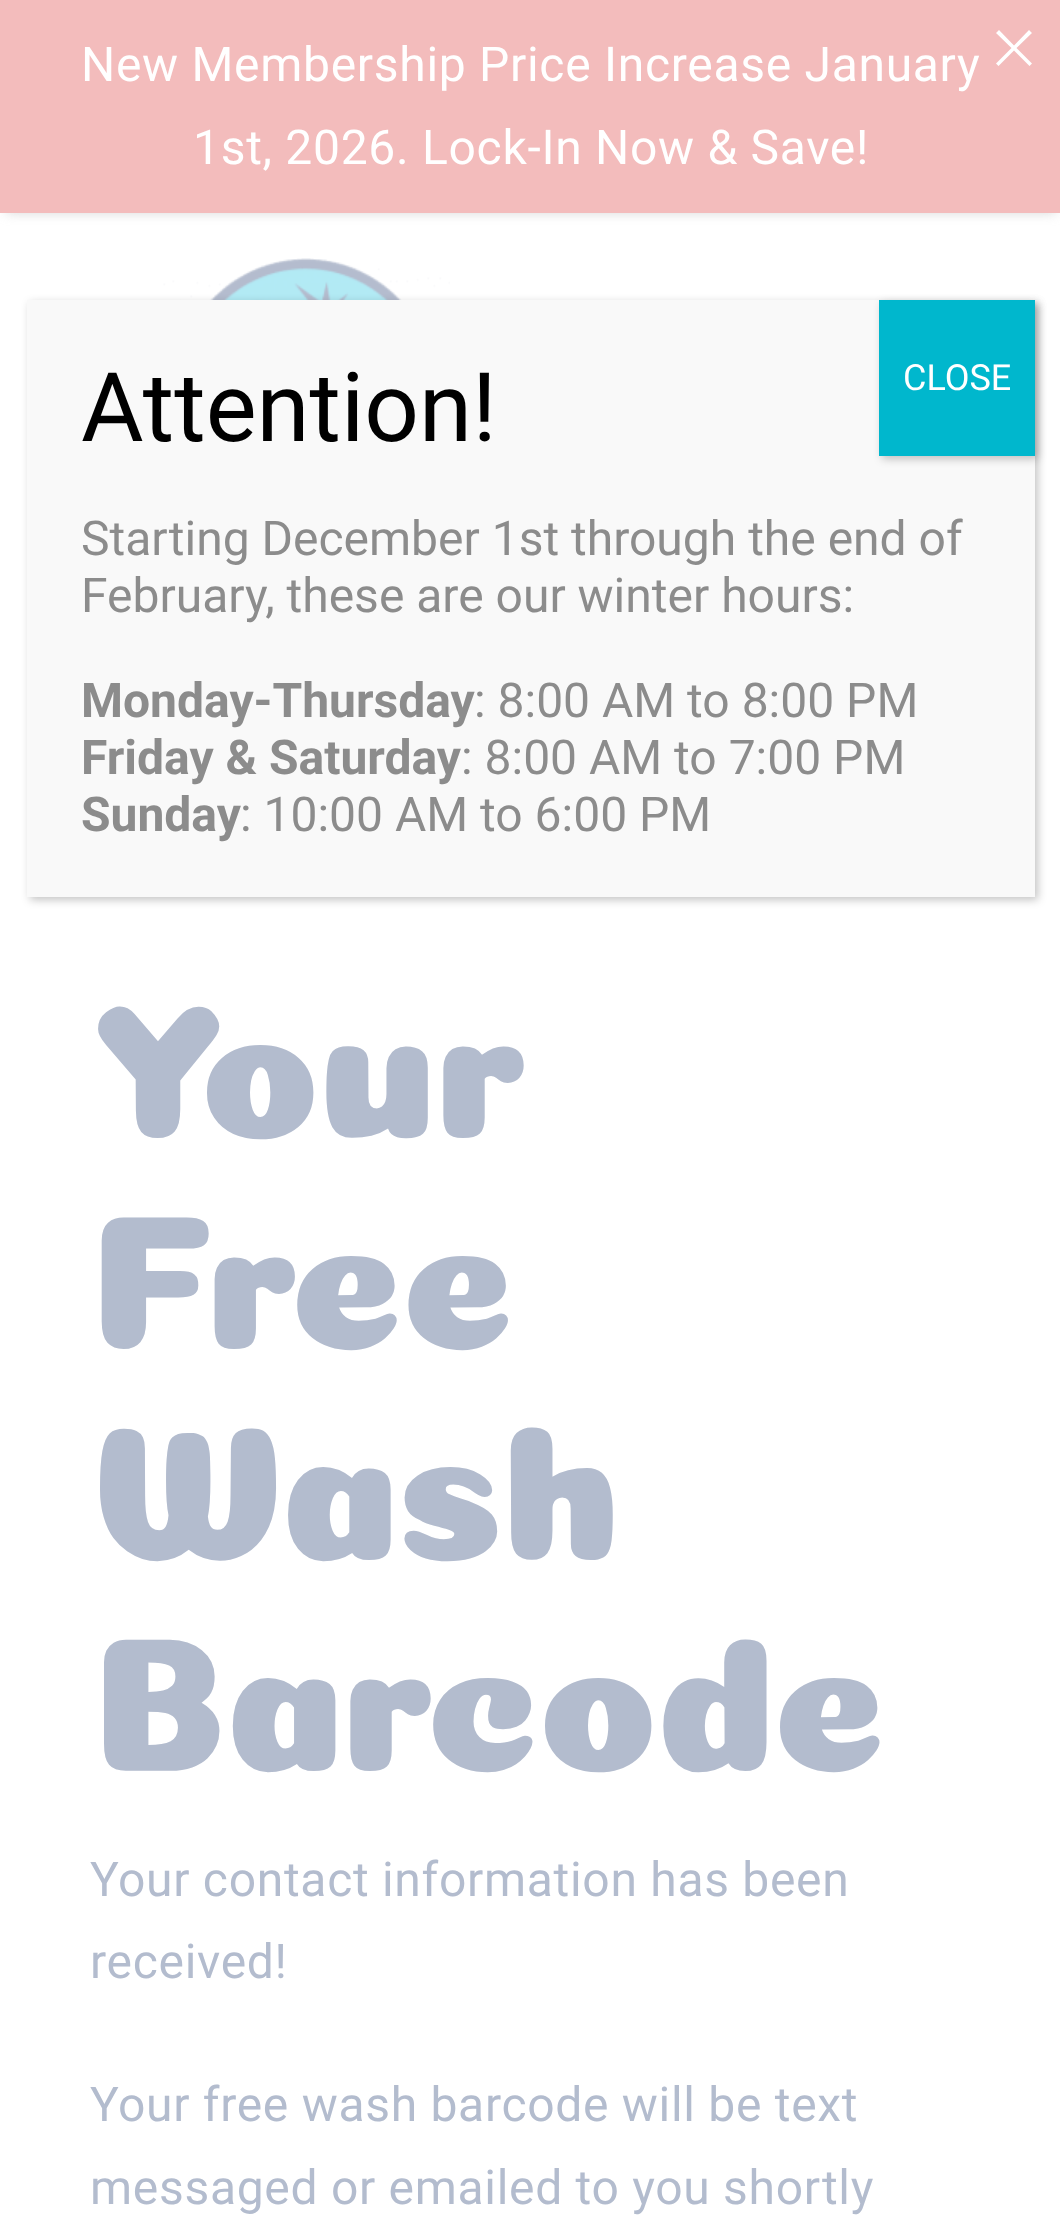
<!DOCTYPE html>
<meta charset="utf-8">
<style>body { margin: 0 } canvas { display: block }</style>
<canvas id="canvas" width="1060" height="2224"></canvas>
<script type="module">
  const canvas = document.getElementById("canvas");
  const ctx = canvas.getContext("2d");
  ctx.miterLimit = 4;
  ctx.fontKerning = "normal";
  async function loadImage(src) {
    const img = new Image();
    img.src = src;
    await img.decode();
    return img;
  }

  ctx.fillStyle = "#ffffff";
  ctx.fillRect(0, 0, 1060, 2224);
  ctx.fillStyle = "rgba(179, 179, 179, 0.5)";
  ctx.filter = "blur(6px)";
  ctx.beginPath();
  ctx.rect(6, 12, 1050, 201);
  ctx.fill();
  ctx.filter = "none";
  ctx.fillStyle = "#f3bcbc";
  ctx.fillRect(0, 0, 1060, 213);
  ctx.letterSpacing = "0.7px";
  ctx.font = "48px Roboto";
  ctx.fillStyle = "#ffffff";
  ctx.fillText("New Membership Price Increase January", 81, 81);
  ctx.fillText("1st, 2026. Lock-In Now & Save!", 193, 164);
  ctx.beginPath();
  ctx.moveTo(999, 30);
  ctx.lineTo(996, 33);
  ctx.lineTo(1011.5, 48);
  ctx.lineTo(996, 63.5);
  ctx.lineTo(998.5, 66);
  ctx.lineTo(1014, 50.5);
  ctx.lineTo(1029.5, 66);
  ctx.lineTo(1032, 63.5);
  ctx.lineTo(1016.5, 48);
  ctx.lineTo(1032, 33);
  ctx.lineTo(1029, 30);
  ctx.lineTo(1014, 45.5);
  ctx.closePath();
  ctx.fill();
  ctx.drawImage(await loadImage("img1.png"), 163, 258, 287, 42);
  ctx.fillStyle = "rgba(2, 2, 2, 0.23)";
  ctx.filter = "blur(4.5px)";
  ctx.beginPath();
  ctx.rect(30, 303, 1008, 597);
  ctx.fill();
  ctx.filter = "none";
  ctx.fillStyle = "#f9f9f9";
  ctx.fillRect(27, 300, 1008, 597);
  ctx.letterSpacing = "0px";
  ctx.font = "96px Roboto";
  ctx.fillStyle = "#000000";
  ctx.fillText("Attention!", 81, 441);
  ctx.fillStyle = "rgba(2, 2, 2, 0.23)";
  ctx.filter = "blur(4.5px)";
  ctx.beginPath();
  ctx.rect(882, 303, 156, 156);
  ctx.fill();
  ctx.filter = "none";
  ctx.fillStyle = "#00b7cd";
  ctx.fillRect(879, 300, 156, 156);
  ctx.font = "36px Roboto";
  ctx.fillStyle = "#ffffff";
  ctx.fillText("CLOSE", 903, 390);
  ctx.font = "48px Roboto";
  ctx.fillStyle = "#8c8c8c";
  ctx.fillText("Starting December 1st through the end of", 81, 555);
  ctx.fillText("February, these are our winter hours:", 81, 612);
  ctx.font = "bold 48px Roboto";
  ctx.fillText("Monday-Thursday", 81, 717);
  ctx.font = "48px Roboto";
  ctx.fillText(": 8:00 AM to 8:00 PM", 474, 717);
  ctx.font = "bold 48px Roboto";
  ctx.fillText("Friday & Saturday", 81, 774);
  ctx.font = "48px Roboto";
  ctx.fillText(": 8:00 AM to 7:00 PM", 461, 774);
  ctx.font = "bold 48px Roboto";
  ctx.fillText("Sunday", 81, 831);
  ctx.font = "48px Roboto";
  ctx.fillText(": 10:00 AM to 6:00 PM", 240, 831);
  ctx.letterSpacing = "-3px";
  ctx.font = "192px Coiny";
  ctx.fillStyle = "#b3bcce";
  ctx.fillText("Your", 90, 1138);
  ctx.fillText("Free", 90, 1349);
  ctx.fillText("Wash", 90, 1560);
  ctx.fillText("Barcode", 90, 1771);
  ctx.letterSpacing = "0.7px";
  ctx.font = "48px Roboto";
  ctx.fillText("Your contact information has been", 90, 1896);
  ctx.fillText("received!", 90, 1978);
  ctx.fillText("Your free wash barcode will be text", 90, 2121);
  ctx.fillText("messaged or emailed to you shortly", 90, 2204);
</script>
